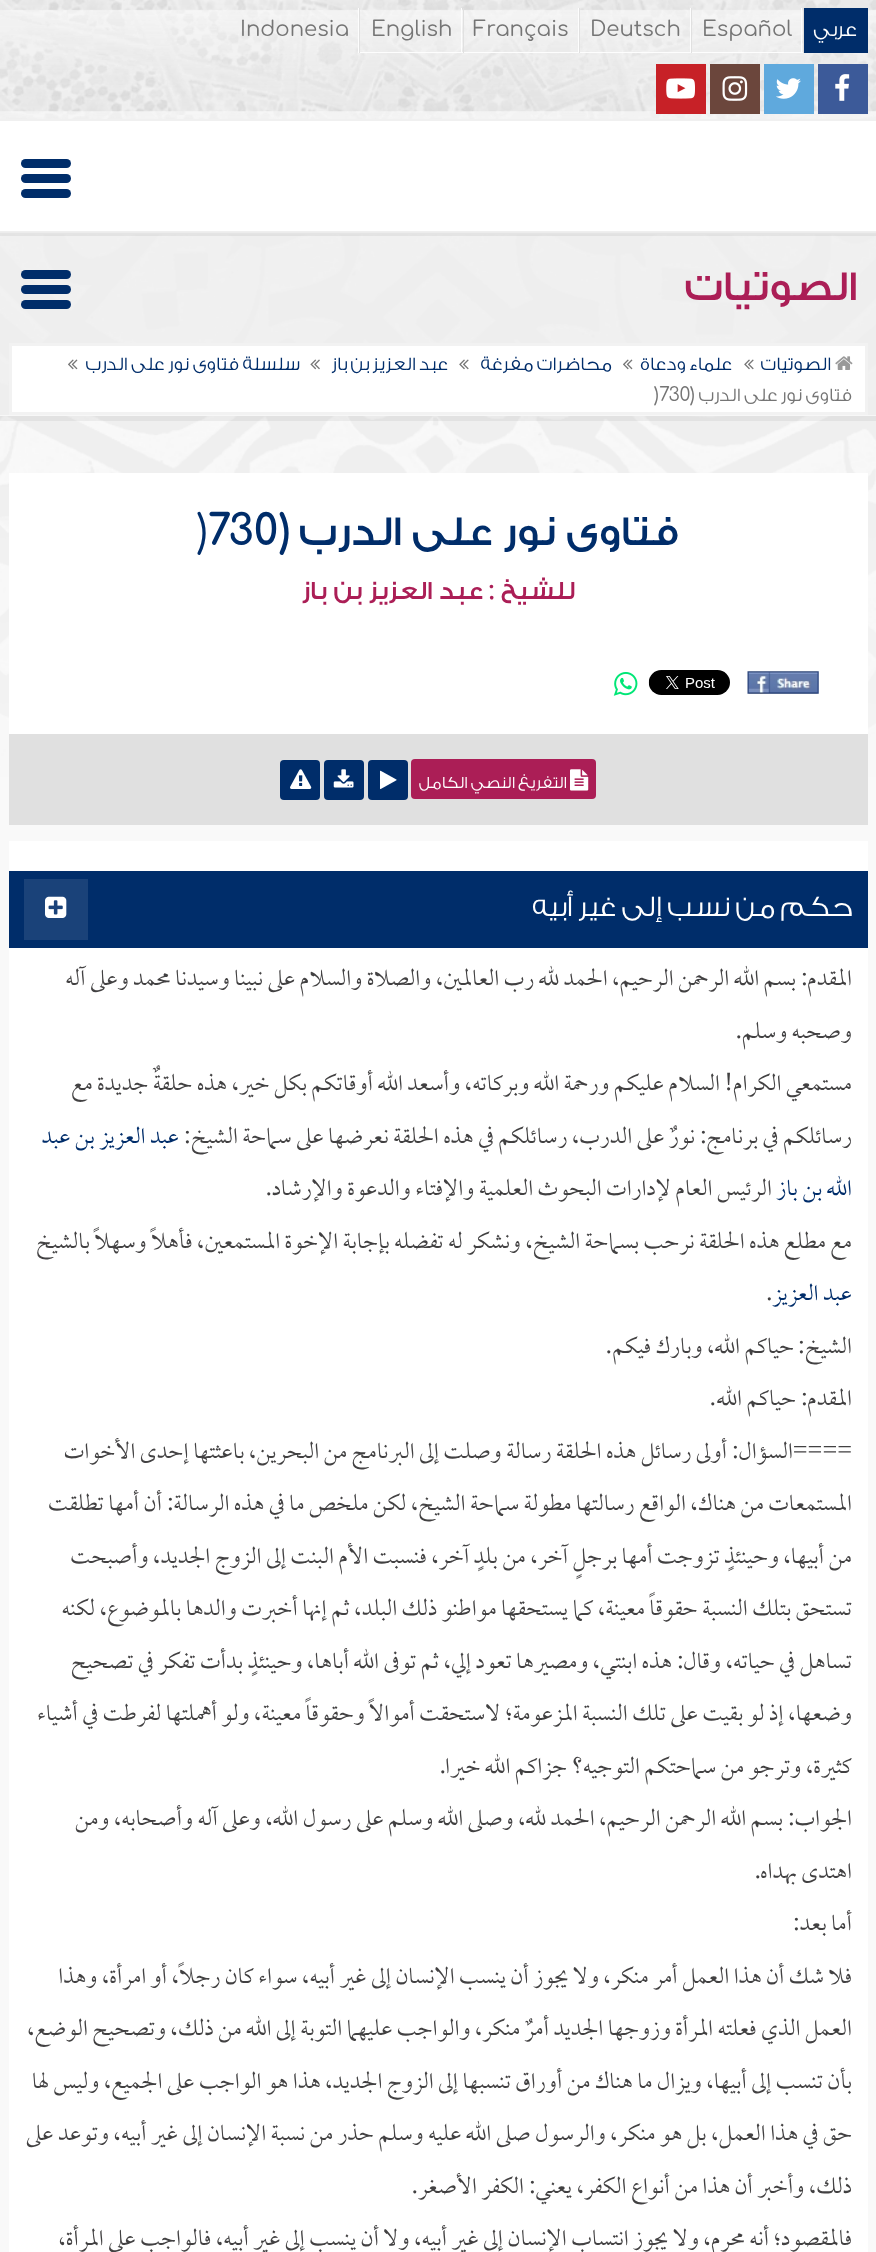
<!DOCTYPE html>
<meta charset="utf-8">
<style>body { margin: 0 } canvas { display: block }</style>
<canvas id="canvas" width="876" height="2252"></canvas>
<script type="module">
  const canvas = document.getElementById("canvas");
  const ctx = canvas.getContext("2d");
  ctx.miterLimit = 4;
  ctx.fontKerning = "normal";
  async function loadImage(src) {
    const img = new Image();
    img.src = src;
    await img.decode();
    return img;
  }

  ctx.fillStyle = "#f9f9f9";
  ctx.fillRect(0, 0, 876, 2252);
  ctx.fillStyle = "#f0f0f0";
  ctx.fillRect(0, 0, 876, 121);
  ctx.drawImage(await loadImage("img1.png"), 0, 0, 876, 119);
  ctx.fillStyle = "#fdfdfd";
  ctx.beginPath();
  ctx.moveTo(801, 8);
  ctx.lineTo(801, 53);
  ctx.lineTo(866, 53);
  ctx.lineTo(866, 52);
  ctx.lineTo(802, 52);
  ctx.lineTo(802, 8);
  ctx.closePath();
  ctx.fill();
  ctx.fillStyle = "#e0e0e0";
  ctx.fillRect(803, 8, 1, 45);
  ctx.fillStyle = "#002d6a";
  ctx.fillRect(804, 8, 64, 45);
  ctx.direction = "rtl";
  ctx.font = "300 21.25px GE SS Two";
  ctx.fillStyle = "#ffffff";
  ctx.fillText("عربي", 857, 36);
  ctx.fillStyle = "#fdfdfd";
  ctx.beginPath();
  ctx.moveTo(690, 8);
  ctx.lineTo(690, 53);
  ctx.lineTo(801, 53);
  ctx.lineTo(801, 52);
  ctx.lineTo(691, 52);
  ctx.lineTo(691, 8);
  ctx.closePath();
  ctx.fill();
  ctx.fillStyle = "#e0e0e0";
  ctx.fillRect(691, 8, 1, 45);
  ctx.direction = "ltr";
  ctx.font = "21.25px Comfortaa";
  ctx.fillStyle = "#757575";
  ctx.fillText("Español", 702, 36);
  ctx.fillStyle = "#fdfdfd";
  ctx.beginPath();
  ctx.moveTo(578, 8);
  ctx.lineTo(578, 53);
  ctx.lineTo(690, 53);
  ctx.lineTo(690, 52);
  ctx.lineTo(579, 52);
  ctx.lineTo(579, 8);
  ctx.closePath();
  ctx.fill();
  ctx.fillStyle = "#e0e0e0";
  ctx.fillRect(579, 8, 1, 45);
  ctx.fillStyle = "#757575";
  ctx.fillText("Deutsch", 590, 36);
  ctx.fillStyle = "#fdfdfd";
  ctx.beginPath();
  ctx.moveTo(461, 8);
  ctx.lineTo(461, 53);
  ctx.lineTo(578, 53);
  ctx.lineTo(578, 52);
  ctx.lineTo(462, 52);
  ctx.lineTo(462, 8);
  ctx.closePath();
  ctx.fill();
  ctx.fillStyle = "#e0e0e0";
  ctx.fillRect(463, 8, 1, 45);
  ctx.fillStyle = "#757575";
  ctx.fillText("Français", 473, 36);
  ctx.fillStyle = "#fdfdfd";
  ctx.beginPath();
  ctx.moveTo(358, 8);
  ctx.lineTo(358, 53);
  ctx.lineTo(461, 53);
  ctx.lineTo(461, 52);
  ctx.lineTo(359, 52);
  ctx.lineTo(359, 8);
  ctx.closePath();
  ctx.fill();
  ctx.fillStyle = "#e0e0e0";
  ctx.fillRect(359, 8, 1, 45);
  ctx.fillStyle = "#757575";
  ctx.fillText("English", 371, 36);
  ctx.fillText("Indonesia", 240, 36);
  ctx.fillStyle = "#3c5a99";
  ctx.fillRect(818, 64, 50, 50);
  ctx.drawImage(await loadImage("img2.png"), 835, 74, 15, 27);
  ctx.fillStyle = "#5fa9dd";
  ctx.fillRect(764, 64, 50, 50);
  ctx.drawImage(await loadImage("img3.png"), 776, 78, 25, 21);
  ctx.fillStyle = "#6b463c";
  ctx.fillRect(710, 64, 50, 50);
  ctx.drawImage(await loadImage("img4.png"), 722, 76, 26, 25);
  ctx.fillStyle = "#c72127";
  ctx.fillRect(656, 64, 50, 50);
  ctx.drawImage(await loadImage("img5.png"), 666, 78, 29, 21);
  ctx.drawImage(await loadImage("img6.png"), 0, 234, 876, 543);
  ctx.fillStyle = "#fcfcfc";
  ctx.fillRect(0, 231, 876, 1);
  ctx.fillStyle = "rgba(238, 238, 238, 0.75)";
  ctx.fillRect(0, 233, 876, 182);
  ctx.fillStyle = "rgba(0, 0, 0, 0.05)";
  ctx.fillRect(0, 231, 876, 5);
  ctx.fillStyle = "#ffffff";
  ctx.fillRect(0, 121, 876, 110);
  ctx.fillStyle = "#002d6a";
  ctx.beginPath();
  ctx.roundRect(46, 159, 25, 9, [0, 4.5, 4.5, 0]);
  ctx.fill();
  ctx.beginPath();
  ctx.roundRect(21, 159, 25, 9, [4.5, 0, 0, 4.5]);
  ctx.fill();
  ctx.beginPath();
  ctx.roundRect(46, 174, 25, 9, [0, 4.5, 4.5, 0]);
  ctx.fill();
  ctx.beginPath();
  ctx.roundRect(21, 174, 25, 9, [4.5, 0, 0, 4.5]);
  ctx.fill();
  ctx.beginPath();
  ctx.roundRect(46, 189, 25, 9, [0, 4.5, 4.5, 0]);
  ctx.fill();
  ctx.beginPath();
  ctx.roundRect(21, 189, 25, 9, [4.5, 0, 0, 4.5]);
  ctx.fill();
  ctx.fillStyle = "rgba(0, 0, 0, 0.05)";
  ctx.fillRect(0, 416, 876, 5);
  ctx.fillStyle = "#f7f7f7";
  ctx.fillRect(0, 415, 876, 1);
  ctx.direction = "rtl";
  ctx.font = "500 42.5px GE SS Two";
  ctx.fillStyle = "#ab1e56";
  ctx.fillText("الصوتيات", 857, 300);
  ctx.fillStyle = "#002d6a";
  ctx.beginPath();
  ctx.roundRect(46, 270, 25, 9, [0, 4.5, 4.5, 0]);
  ctx.fill();
  ctx.beginPath();
  ctx.roundRect(21, 270, 25, 9, [4.5, 0, 0, 4.5]);
  ctx.fill();
  ctx.beginPath();
  ctx.roundRect(46, 285, 25, 9, [0, 4.5, 4.5, 0]);
  ctx.fill();
  ctx.beginPath();
  ctx.roundRect(21, 285, 25, 9, [4.5, 0, 0, 4.5]);
  ctx.fill();
  ctx.beginPath();
  ctx.roundRect(46, 300, 25, 9, [0, 4.5, 4.5, 0]);
  ctx.fill();
  ctx.beginPath();
  ctx.roundRect(21, 300, 25, 9, [4.5, 0, 0, 4.5]);
  ctx.fill();
  ctx.fillStyle = "#ffffff";
  ctx.beginPath();
  ctx.rect(10.5, 344.5, 856, 69);
  ctx.fill();
  ctx.strokeStyle = "#f2f2f2";
  ctx.lineWidth = 3;
  ctx.stroke();
  ctx.drawImage(await loadImage("img7.png"), 835, 356, 18, 14);
  ctx.font = "300 19.1px GE SS Two";
  ctx.fillStyle = "#002d6a";
  ctx.fillText("الصوتيات", 831, 370);
  ctx.drawImage(await loadImage("img8.png"), 744, 359, 10, 11);
  ctx.fillText("علماء ودعاة", 732, 370);
  ctx.drawImage(await loadImage("img9.png"), 623, 359, 10, 11);
  ctx.fillText("محاضرات مفرغة", 612, 370);
  ctx.drawImage(await loadImage("img8.png"), 459, 359, 10, 11);
  ctx.fillText("عبد العزيز بن باز", 448, 370);
  ctx.drawImage(await loadImage("img10.png"), 310, 359, 10, 11);
  ctx.fillText("سلسلة فتاوى نور على الدرب", 300, 370);
  ctx.drawImage(await loadImage("img9.png"), 68, 359, 10, 11);
  ctx.fillStyle = "#757575";
  ctx.fillText("فتاوى نور على الدرب", 852, 401);
  ctx.font = "19.1px Comfortaa";
  ctx.fillText("(", 695, 401);
  ctx.direction = "ltr";
  ctx.fillText(")730", 654, 401);
  ctx.fillStyle = "#ffffff";
  ctx.fillRect(9, 473, 859, 261);
  ctx.direction = "rtl";
  ctx.font = "500 42.5px GE SS Two";
  ctx.fillStyle = "#002d6a";
  ctx.fillText("فتاوى نور على الدرب", 679, 545);
  ctx.font = "bold 42.5px Comfortaa";
  ctx.fillText("(", 290, 545);
  ctx.direction = "ltr";
  ctx.fillText("730", 208, 545);
  ctx.font = "42.5px Comfortaa";
  ctx.fillText(")", 197, 545);
  ctx.direction = "rtl";
  ctx.font = "500 26.25px GE SS Two";
  ctx.fillStyle = "#ab1e56";
  ctx.fillText("للشيخ", 575, 599);
  ctx.font = "bold 26.25px Comfortaa";
  ctx.fillText(":", 494, 599);
  ctx.font = "500 26.25px GE SS Two";
  ctx.fillText("عبد العزيز بن باز", 483, 599);
  ctx.drawImage(await loadImage("img11.png"), 747, 671, 72, 23);
  ctx.drawImage(await loadImage("img12.png"), 648, 670, 82, 25);
  ctx.drawImage(await loadImage("img13.png"), 613, 672, 25, 24);
  ctx.fillStyle = "#e0e0e0";
  ctx.fillRect(9, 734, 859, 91);
  ctx.fillStyle = "#ab1e56";
  ctx.beginPath();
  ctx.roundRect(411, 759, 185, 40, 4);
  ctx.fill();
  ctx.drawImage(await loadImage("img14.png"), 570, 769, 19, 22);
  ctx.font = "300 17px GE SS Two";
  ctx.fillStyle = "#ffffff";
  ctx.fillText("التفريغ النصي الكامل", 567, 788);
  ctx.fillStyle = "#002d6a";
  ctx.beginPath();
  ctx.roundRect(368, 760, 40, 40, 4);
  ctx.fill();
  ctx.drawImage(await loadImage("img15.png"), 380, 770, 17, 20);
  ctx.beginPath();
  ctx.roundRect(324, 760, 40, 40, 4);
  ctx.fill();
  ctx.drawImage(await loadImage("img16.png"), 333, 769, 21, 19);
  ctx.beginPath();
  ctx.roundRect(280, 760, 40, 40, 4);
  ctx.fill();
  ctx.drawImage(await loadImage("img17.png"), 290, 769, 22, 20);
  ctx.fillStyle = "#ffffff";
  ctx.fillRect(9, 841, 859, 30);
  ctx.fillStyle = "#002d6a";
  ctx.fillRect(9, 871, 859, 77);
  ctx.font = "300 29.75px GE SS Two";
  ctx.fillStyle = "#ffffff";
  ctx.fillText("حكم من نسب إلى غير أبيه", 853, 916);
  ctx.fillStyle = "#1a4279";
  ctx.fillRect(24, 879, 64, 61);
  ctx.drawImage(await loadImage("img18.png"), 45, 896, 22, 22);
  ctx.fillStyle = "#ffffff";
  ctx.fillRect(9, 948, 859, 1304);
  ctx.font = "300 26.25px 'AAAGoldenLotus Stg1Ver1'";
  ctx.fillStyle = "#424142";
  ctx.fillText("المقدم", 852, 985);
  ctx.font = "26.25px Liberation Serif";
  ctx.fillText(":", 808, 985);
  ctx.font = "300 26.25px 'AAAGoldenLotus Stg1Ver1'";
  ctx.fillText("بسم الله الرحمن الرحيم، الحمد لله رب العالمين، والصلاة والسلام على نبينا وسيدنا محمد وعلى آله", 796, 985);
  ctx.fillText("وصحبه وسلم", 852, 1038);
  ctx.font = "26.25px Liberation Serif";
  ctx.fillText(".", 742, 1038);
  ctx.font = "300 26.25px 'AAAGoldenLotus Stg1Ver1'";
  ctx.fillText("مستمعي الكرام", 852, 1090);
  ctx.font = "26.25px Liberation Serif";
  ctx.fillText("!", 733, 1090);
  ctx.font = "300 26.25px 'AAAGoldenLotus Stg1Ver1'";
  ctx.fillText("السلام عليكم ورحمة الله وبركاته، وأسعد الله أوقاتكم بكل خير، هذه حلقةٌ جديدة مع", 720, 1090);
  ctx.fillText("رسائلكم في برنامج", 852, 1143);
  ctx.font = "26.25px Liberation Serif";
  ctx.fillText(":", 707, 1143);
  ctx.font = "300 26.25px 'AAAGoldenLotus Stg1Ver1'";
  ctx.fillText("نورٌ على الدرب، رسائلكم في هذه الحلقة نعرضها على سماحة الشيخ", 695, 1143);
  ctx.font = "26.25px Liberation Serif";
  ctx.fillText(":", 191, 1143);
  ctx.font = "300 26.25px 'AAAGoldenLotus Stg1Ver1'";
  ctx.fillStyle = "#002d6a";
  ctx.fillText("عبد العزيز بن عبد", 179, 1143);
  ctx.fillText("الله بن باز", 852, 1195);
  ctx.fillStyle = "#424142";
  ctx.fillText("الرئيس العام لإدارات البحوث العلمية والإفتاء والدعوة والإرشاد", 772, 1195);
  ctx.font = "26.25px Liberation Serif";
  ctx.fillText(".", 272, 1195);
  ctx.font = "300 26.25px 'AAAGoldenLotus Stg1Ver1'";
  ctx.fillText("مع مطلع هذه الحلقة نرحب بسماحة الشيخ، ونشكر له تفضله بإجابة الإخوة المستمعين، فأهلاً وسهلاً بالشيخ", 852, 1248);
  ctx.fillStyle = "#002d6a";
  ctx.fillText("عبد العزيز", 852, 1300);
  ctx.direction = "ltr";
  ctx.font = "26.25px Liberation Serif";
  ctx.fillStyle = "#424142";
  ctx.fillText(".", 766, 1300);
  ctx.direction = "rtl";
  ctx.font = "300 26.25px 'AAAGoldenLotus Stg1Ver1'";
  ctx.fillText("الشيخ", 852, 1353);
  ctx.font = "26.25px Liberation Serif";
  ctx.fillText(":", 805, 1353);
  ctx.font = "300 26.25px 'AAAGoldenLotus Stg1Ver1'";
  ctx.fillText("حياكم الله، وبارك فيكم", 794, 1353);
  ctx.font = "26.25px Liberation Serif";
  ctx.fillText(".", 612, 1353);
  ctx.font = "300 26.25px 'AAAGoldenLotus Stg1Ver1'";
  ctx.fillText("المقدم", 852, 1405);
  ctx.font = "26.25px Liberation Serif";
  ctx.fillText(":", 808, 1405);
  ctx.font = "300 26.25px 'AAAGoldenLotus Stg1Ver1'";
  ctx.fillText("حياكم الله", 796, 1405);
  ctx.font = "26.25px Liberation Serif";
  ctx.fillText(".", 716, 1405);
  ctx.fillText("====", 852, 1458);
  ctx.font = "300 26.25px 'AAAGoldenLotus Stg1Ver1'";
  ctx.fillText("السؤال", 793, 1458);
  ctx.font = "26.25px Liberation Serif";
  ctx.fillText(":", 739, 1458);
  ctx.font = "300 26.25px 'AAAGoldenLotus Stg1Ver1'";
  ctx.fillText("أولى رسائل هذه الحلقة رسالة وصلت إلى البرنامج من البحرين، باعثتها إحدى الأخوات", 727, 1458);
  ctx.fillText("المستمعات من هناك، الواقع رسالتها مطولة سماحة الشيخ، لكن ملخص ما في هذه الرسالة", 852, 1510);
  ctx.font = "26.25px Liberation Serif";
  ctx.fillText(":", 174, 1510);
  ctx.font = "300 26.25px 'AAAGoldenLotus Stg1Ver1'";
  ctx.fillText("أن أمها تطلقت", 162, 1510);
  ctx.fillText("من أبيها، وحينئذٍ تزوجت أمها برجلٍ آخر، من بلدٍ آخر، فنسبت الأم البنت إلى الزوج الجديد، وأصبحت", 852, 1563);
  ctx.fillText("تستحق بتلك النسبة حقوقاً معينة، كما يستحقها مواطنو ذلك البلد، ثم إنها أخبرت والدها بالموضوع، لكنه", 852, 1615);
  ctx.fillText("تساهل في حياته، وقال", 852, 1668);
  ctx.font = "26.25px Liberation Serif";
  ctx.fillText(":", 684, 1668);
  ctx.font = "300 26.25px 'AAAGoldenLotus Stg1Ver1'";
  ctx.fillText("هذه ابنتي، ومصيرها تعود إلي، ثم توفى الله أباها، وحينئذٍ بدأت تفكر في تصحيح", 672, 1668);
  ctx.fillText("وضعها، إذ لو بقيت على تلك النسبة المزعومة؛ لاستحقت أموالاً وحقوقاً معينة، ولو أهملتها لفرطت في أشياء", 852, 1720);
  ctx.fillText("كثيرة، وترجو من سماحتكم التوجيه؟ جزاكم الله خيرا", 852, 1773);
  ctx.font = "26.25px Liberation Serif";
  ctx.fillText(".", 446, 1773);
  ctx.font = "300 26.25px 'AAAGoldenLotus Stg1Ver1'";
  ctx.fillText("الجواب", 852, 1825);
  ctx.font = "26.25px Liberation Serif";
  ctx.fillText(":", 795, 1825);
  ctx.font = "300 26.25px 'AAAGoldenLotus Stg1Ver1'";
  ctx.fillText("بسم الله الرحمن الرحيم، الحمد لله، وصلى الله وسلم على رسول الله، وعلى آله وأصحابه، ومن", 783, 1825);
  ctx.fillText("اهتدى بهداه", 852, 1878);
  ctx.font = "26.25px Liberation Serif";
  ctx.fillText(".", 761, 1878);
  ctx.font = "300 26.25px 'AAAGoldenLotus Stg1Ver1'";
  ctx.fillText("أما بعد", 852, 1930);
  ctx.font = "26.25px Liberation Serif";
  ctx.fillText(":", 800, 1930);
  ctx.font = "300 26.25px 'AAAGoldenLotus Stg1Ver1'";
  ctx.fillText("فلا شك أن هذا العمل أمر منكر، ولا يجوز أن ينسب الإنسان إلى غير أبيه، سواء كان رجلاً، أو امرأة، وهذا", 852, 1983);
  ctx.fillText("العمل الذي فعلته المرأة وزوجها الجديد أمرٌ منكر، والواجب عليهما التوبة إلى الله من ذلك، وتصحيح الوضع،", 852, 2035);
  ctx.fillText("بأن تنسب إلى أبيها، ويزال ما هناك من أوراق تنسبها إلى الزوج الجديد، هذا هو الواجب على الجميع، وليس لها", 852, 2088);
  ctx.fillText("حق في هذا العمل، بل هو منكر، والرسول صلى الله عليه وسلم حذر من نسبة الإنسان إلى غير أبيه، وتوعد على", 852, 2140);
  ctx.fillText("ذلك، وأخبر أن هذا من أنواع الكفر، يعني", 852, 2193);
  ctx.font = "26.25px Liberation Serif";
  ctx.fillText(":", 536, 2193);
  ctx.font = "300 26.25px 'AAAGoldenLotus Stg1Ver1'";
  ctx.fillText("الكفر الأصغر", 524, 2193);
  ctx.font = "26.25px Liberation Serif";
  ctx.fillText(".", 418, 2193);
  ctx.font = "300 26.25px 'AAAGoldenLotus Stg1Ver1'";
  ctx.fillText("فالمقصود؛ أنه محرم، ولا يجوز انتساب الإنسان إلى غير أبيه، ولا أن ينسب إلى غير أبيه، فالواجب على المرأة،", 852, 2245);
</script>
